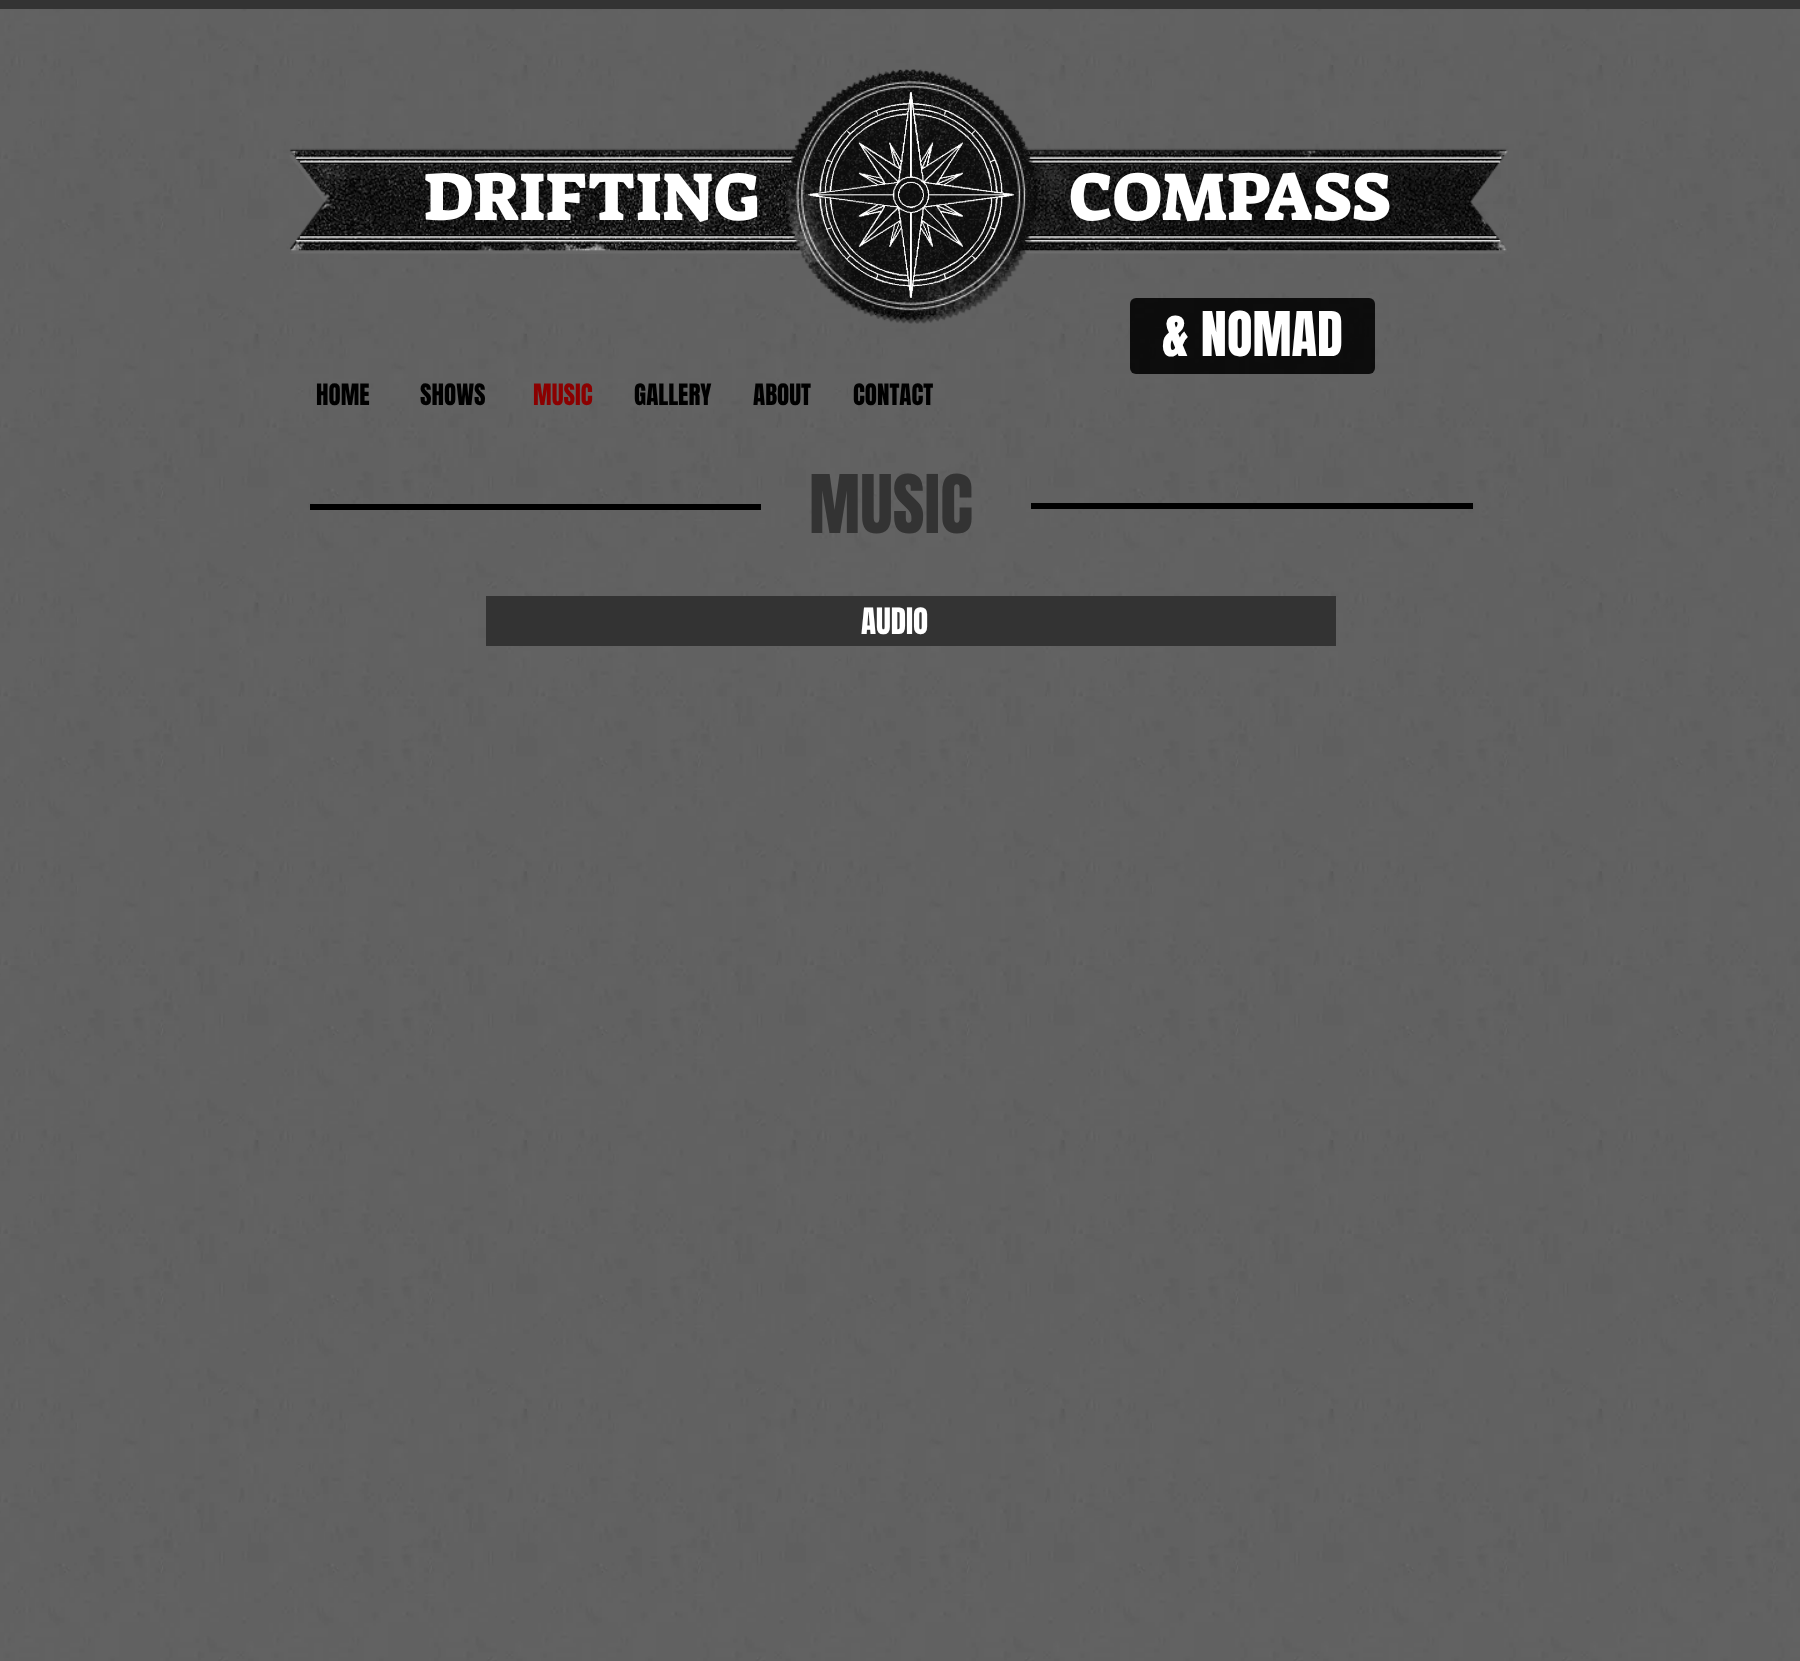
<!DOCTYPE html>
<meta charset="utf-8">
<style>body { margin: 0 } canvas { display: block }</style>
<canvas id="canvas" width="1800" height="1661"></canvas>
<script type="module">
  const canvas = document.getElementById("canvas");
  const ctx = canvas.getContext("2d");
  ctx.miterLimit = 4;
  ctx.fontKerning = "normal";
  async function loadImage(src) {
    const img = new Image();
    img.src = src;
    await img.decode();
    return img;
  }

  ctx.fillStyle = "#ffffff";
  ctx.fillRect(0, 0, 1800, 1661);
  ctx.drawImage(await loadImage("img1.png"), 0, 9, 1800, 1652);
  ctx.fillStyle = "#333333";
  ctx.fillRect(0, 0, 1800, 9);
  ctx.drawImage(await loadImage("img4.png"), 289, 148, 1219, 106);
  ctx.drawImage(await loadImage("img2.png"), 785, 69, 254, 255);
  ctx.drawImage(await loadImage("img3.png"), 808, 91, 207, 207);
  ctx.font = "68.75px Suez One";
  ctx.fillStyle = "#ffffff";
  ctx.fillText("DRIFTING", 423, 220);
  ctx.fillText("COMPASS", 1069, 220);
  ctx.fillStyle = "rgba(0, 0, 0, 0.87)";
  ctx.beginPath();
  ctx.roundRect(1130, 298, 245, 76, 6);
  ctx.fill();
  ctx.font = "52.5px Anton";
  ctx.fillStyle = "#ffffff";
  ctx.fillText("& NOMAD", 1162, 356);
  ctx.font = "25px Anton";
  ctx.fillStyle = "#000000";
  ctx.fillText("HOME", 316, 405);
  ctx.fillText("SHOWS", 420, 405);
  ctx.fillStyle = "#8b0000";
  ctx.fillText("MUSIC", 533, 405);
  ctx.fillStyle = "#000000";
  ctx.fillText("GALLERY", 634, 405);
  ctx.fillText("ABOUT", 753, 405);
  ctx.fillText("CONTACT", 853, 405);
  ctx.fillRect(310, 504, 451, 6);
  ctx.font = "68.75px Anton";
  ctx.fillStyle = "#333333";
  ctx.fillText("MUSIC", 809, 533);
  ctx.fillStyle = "#000000";
  ctx.fillRect(1031, 503, 442, 6);
  ctx.fillStyle = "#333333";
  ctx.fillRect(486, 596, 850, 50);
  ctx.font = "31px Anton";
  ctx.fillStyle = "#ffffff";
  ctx.fillText("AUDIO", 861, 634);
</script>
